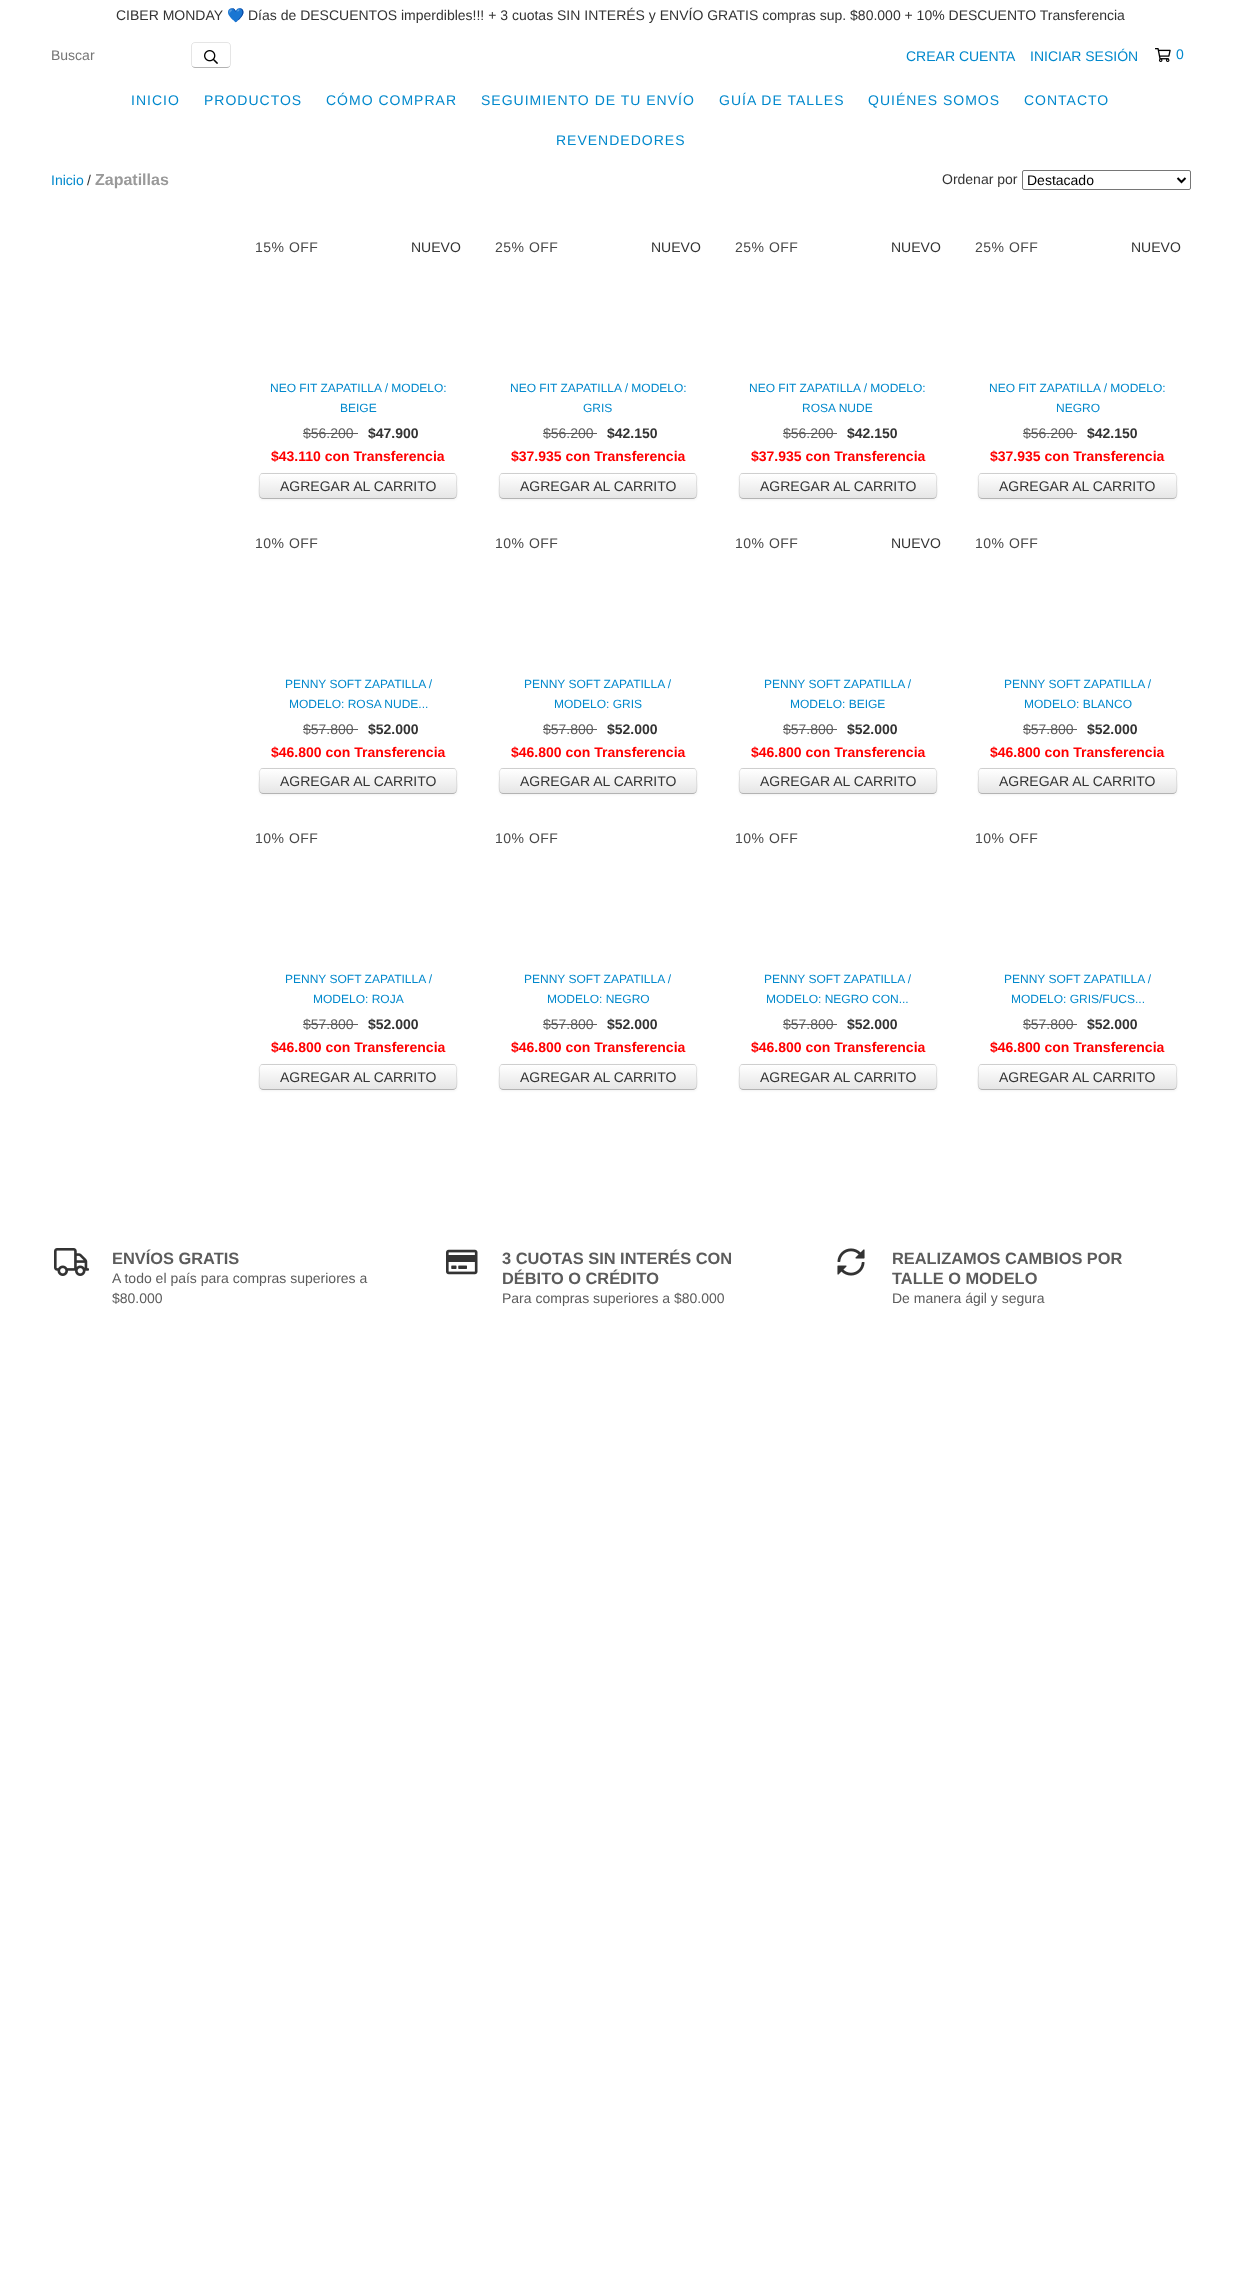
<!DOCTYPE html>
<meta charset="utf-8">
<style>body { margin: 0 } canvas { display: block }</style>
<canvas id="canvas" width="1241" height="2286"></canvas>
<script type="module">
  const canvas = document.getElementById("canvas");
  const ctx = canvas.getContext("2d");
  ctx.miterLimit = 4;
  ctx.fontKerning = "normal";
  async function loadImage(src) {
    const img = new Image();
    img.src = src;
    await img.decode();
    return img;
  }
  let gradient;

  ctx.fillStyle = "#ffffff";
  ctx.fillRect(0, 0, 1241, 2286);
  ctx.font = "14px Liberation Sans";
  ctx.fillStyle = "#333333";
  ctx.fillText("CIBER MONDAY", 116, 20);
  ctx.font = "14px Noto Color Emoji";
  ctx.fillText("💙", 227, 20);
  ctx.font = "14px Liberation Sans";
  ctx.fillText("Días de DESCUENTOS imperdibles!!! + 3 cuotas SIN INTERÉS y ENVÍO GRATIS compras sup. $80.000 + 10% DESCUENTO Transferencia", 248, 20);
  ctx.fillStyle = "#757575";
  ctx.fillText("Buscar", 51, 60);
  ctx.beginPath();
  ctx.moveTo(229.5, 66.5);
  ctx.bezierCurveTo(229, 67, 228, 67.5, 227, 67.5);
  ctx.lineTo(195, 67.5);
  ctx.bezierCurveTo(194, 67.5, 193, 67, 192.5, 66.5);
  ctx.strokeStyle = "#b3b3b3";
  ctx.stroke();
  ctx.beginPath();
  ctx.moveTo(192.5, 66.5);
  ctx.bezierCurveTo(192, 66, 191.5, 65, 191.5, 64);
  ctx.lineTo(191.5, 46);
  ctx.bezierCurveTo(191.5, 45, 192, 44, 192.5, 43.5);
  ctx.bezierCurveTo(193, 43, 194, 42.5, 195, 42.5);
  ctx.lineTo(227, 42.5);
  ctx.bezierCurveTo(228, 42.5, 229, 43, 229.5, 43.5);
  ctx.bezierCurveTo(230, 44, 230.5, 45, 230.5, 46);
  ctx.lineTo(230.5, 64);
  ctx.bezierCurveTo(230.5, 65, 230, 66, 229.5, 66.5);
  ctx.strokeStyle = "rgba(0, 0, 0, 0.1)";
  ctx.stroke();
  ctx.drawImage(await loadImage("img1.png"), 204, 50, 14, 14);
  ctx.fillStyle = "#0088cc";
  ctx.fillText("CREAR CUENTA", 906, 61);
  ctx.fillText("INICIAR SESIÓN", 1030, 61);
  ctx.drawImage(await loadImage("img2.png"), 1155, 48, 16, 14);
  ctx.letterSpacing = "1px";
  ctx.fillText("0", 1176, 59);
  ctx.fillText("INICIO", 131, 105);
  ctx.fillText("PRODUCTOS", 204, 105);
  ctx.fillText("CÓMO COMPRAR", 326, 105);
  ctx.fillText("SEGUIMIENTO DE TU ENVÍO", 481, 105);
  ctx.fillText("GUÍA DE TALLES", 719, 105);
  ctx.fillText("QUIÉNES SOMOS", 868, 105);
  ctx.fillText("CONTACTO", 1024, 105);
  ctx.fillText("REVENDEDORES", 556, 145);
  ctx.letterSpacing = "0px";
  ctx.fillText("Inicio", 51, 185);
  ctx.fillStyle = "#333333";
  ctx.fillText("/", 87, 185);
  ctx.font = "bold 16px Liberation Sans";
  ctx.fillStyle = "#999999";
  ctx.fillText("Zapatillas", 95, 185);
  ctx.font = "14px Liberation Sans";
  ctx.fillStyle = "#333333";
  ctx.fillText("Ordenar por", 942, 184);
  ctx.beginPath();
  ctx.roundRect(1022.5, 170.5, 168, 19, 1.5);
  ctx.strokeStyle = "#767676";
  ctx.stroke();
  ctx.beginPath();
  ctx.moveTo(1177.5, 178);
  ctx.lineTo(1181.5, 182);
  ctx.lineTo(1185.5, 178);
  ctx.strokeStyle = "#000000";
  ctx.lineWidth = 2;
  ctx.stroke();
  ctx.fillStyle = "#000000";
  ctx.fillText("Destacado", 1027, 185);
  ctx.letterSpacing = "0.5px";
  ctx.fillStyle = "#474747";
  ctx.fillText("15% OFF", 255, 252);
  ctx.letterSpacing = "0px";
  ctx.fillStyle = "#333333";
  ctx.fillText("NUEVO", 411, 252);
  ctx.font = "12px Liberation Sans";
  ctx.fillStyle = "#0088cc";
  ctx.fillText("NEO FIT ZAPATILLA / MODELO:", 270, 392);
  ctx.fillText("BEIGE", 340, 412);
  ctx.font = "14px Liberation Sans";
  ctx.fillStyle = "#5c5c5c";
  ctx.fillText("$56.200", 303, 438);
  ctx.fillRect(303, 433, 55, 1);
  ctx.font = "bold 14px Liberation Sans";
  ctx.fillStyle = "#333333";
  ctx.fillText("$47.900", 368, 438);
  ctx.fillStyle = "#ff0000";
  ctx.fillText("$43.110 con Transferencia", 271, 461);
  ctx.fillStyle = "rgba(0, 0, 0, 0.05)";
  ctx.filter = "blur(1px)";
  ctx.beginPath();
  ctx.roundRect(259, 474, 198, 26, 4);
  ctx.fill();
  ctx.filter = "none";
  ctx.save();
  ctx.beginPath();
  ctx.roundRect(259, 473, 198, 26, 4);
  ctx.clip();
  gradient = ctx.createLinearGradient(358, 474, 358, 498);
  gradient.addColorStop(0, "#ffffff");
  gradient.addColorStop(1, "#e6e6e6");
  ctx.fillStyle = gradient;
  ctx.fillRect(259, 474, 198, 24);
  gradient = ctx.createLinearGradient(358, 450, 358, 474);
  gradient.addColorStop(0, "#ffffff");
  gradient.addColorStop(1, "#e6e6e6");
  ctx.fillStyle = gradient;
  ctx.fillRect(259, 473, 198, 1);
  ctx.restore();
  ctx.beginPath();
  ctx.moveTo(455.5, 497.5);
  ctx.bezierCurveTo(455, 498, 454, 498.5, 453, 498.5);
  ctx.lineTo(263, 498.5);
  ctx.bezierCurveTo(262, 498.5, 261, 498, 260.5, 497.5);
  ctx.strokeStyle = "#b3b3b3";
  ctx.lineWidth = 1;
  ctx.stroke();
  ctx.beginPath();
  ctx.moveTo(260.5, 497.5);
  ctx.bezierCurveTo(258, 495, 259.5, 486, 259.5, 483);
  ctx.bezierCurveTo(259.5, 480.5, 258, 473.5, 263, 473.5);
  ctx.lineTo(453, 473.5);
  ctx.bezierCurveTo(458, 473.5, 456.5, 480.5, 456.5, 483);
  ctx.bezierCurveTo(456.5, 486, 458, 495, 455.5, 497.5);
  ctx.strokeStyle = "rgba(0, 0, 0, 0.1)";
  ctx.stroke();
  ctx.font = "14px Liberation Sans";
  ctx.fillStyle = "#333333";
  ctx.fillText("AGREGAR AL CARRITO", 280, 491);
  ctx.letterSpacing = "0.5px";
  ctx.fillStyle = "#474747";
  ctx.fillText("25% OFF", 495, 252);
  ctx.letterSpacing = "0px";
  ctx.fillStyle = "#333333";
  ctx.fillText("NUEVO", 651, 252);
  ctx.font = "12px Liberation Sans";
  ctx.fillStyle = "#0088cc";
  ctx.fillText("NEO FIT ZAPATILLA / MODELO:", 510, 392);
  ctx.fillText("GRIS", 583, 412);
  ctx.font = "14px Liberation Sans";
  ctx.fillStyle = "#5c5c5c";
  ctx.fillText("$56.200", 543, 438);
  ctx.fillRect(543, 433, 54, 1);
  ctx.font = "bold 14px Liberation Sans";
  ctx.fillStyle = "#333333";
  ctx.fillText("$42.150", 607, 438);
  ctx.fillStyle = "#ff0000";
  ctx.fillText("$37.935 con Transferencia", 511, 461);
  ctx.fillStyle = "rgba(0, 0, 0, 0.05)";
  ctx.filter = "blur(1px)";
  ctx.beginPath();
  ctx.roundRect(499, 474, 198, 26, 4);
  ctx.fill();
  ctx.filter = "none";
  ctx.save();
  ctx.beginPath();
  ctx.roundRect(499, 473, 198, 26, 4);
  ctx.clip();
  gradient = ctx.createLinearGradient(598, 474, 598, 498);
  gradient.addColorStop(0, "#ffffff");
  gradient.addColorStop(1, "#e6e6e6");
  ctx.fillStyle = gradient;
  ctx.fillRect(499, 474, 198, 24);
  gradient = ctx.createLinearGradient(598, 450, 598, 474);
  gradient.addColorStop(0, "#ffffff");
  gradient.addColorStop(1, "#e6e6e6");
  ctx.fillStyle = gradient;
  ctx.fillRect(499, 473, 198, 1);
  ctx.restore();
  ctx.beginPath();
  ctx.moveTo(695.5, 497.5);
  ctx.bezierCurveTo(695, 498, 694, 498.5, 693, 498.5);
  ctx.lineTo(503, 498.5);
  ctx.bezierCurveTo(502, 498.5, 501, 498, 500.5, 497.5);
  ctx.strokeStyle = "#b3b3b3";
  ctx.stroke();
  ctx.beginPath();
  ctx.moveTo(500.5, 497.5);
  ctx.bezierCurveTo(498, 495, 499.5, 486, 499.5, 483);
  ctx.bezierCurveTo(499.5, 480.5, 498, 473.5, 503, 473.5);
  ctx.lineTo(693, 473.5);
  ctx.bezierCurveTo(698, 473.5, 696.5, 480.5, 696.5, 483);
  ctx.bezierCurveTo(696.5, 486, 698, 495, 695.5, 497.5);
  ctx.strokeStyle = "rgba(0, 0, 0, 0.1)";
  ctx.stroke();
  ctx.font = "14px Liberation Sans";
  ctx.fillStyle = "#333333";
  ctx.fillText("AGREGAR AL CARRITO", 520, 491);
  ctx.letterSpacing = "0.5px";
  ctx.fillStyle = "#474747";
  ctx.fillText("25% OFF", 735, 252);
  ctx.letterSpacing = "0px";
  ctx.fillStyle = "#333333";
  ctx.fillText("NUEVO", 891, 252);
  ctx.font = "12px Liberation Sans";
  ctx.fillStyle = "#0088cc";
  ctx.fillText("NEO FIT ZAPATILLA / MODELO:", 749, 392);
  ctx.fillText("ROSA NUDE", 802, 412);
  ctx.font = "14px Liberation Sans";
  ctx.fillStyle = "#5c5c5c";
  ctx.fillText("$56.200", 783, 438);
  ctx.fillRect(783, 433, 54, 1);
  ctx.font = "bold 14px Liberation Sans";
  ctx.fillStyle = "#333333";
  ctx.fillText("$42.150", 847, 438);
  ctx.fillStyle = "#ff0000";
  ctx.fillText("$37.935 con Transferencia", 751, 461);
  ctx.fillStyle = "rgba(0, 0, 0, 0.05)";
  ctx.filter = "blur(1px)";
  ctx.beginPath();
  ctx.roundRect(739, 474, 198, 26, 4);
  ctx.fill();
  ctx.filter = "none";
  ctx.save();
  ctx.beginPath();
  ctx.roundRect(739, 473, 198, 26, 4);
  ctx.clip();
  gradient = ctx.createLinearGradient(838, 474, 838, 498);
  gradient.addColorStop(0, "#ffffff");
  gradient.addColorStop(1, "#e6e6e6");
  ctx.fillStyle = gradient;
  ctx.fillRect(739, 474, 198, 24);
  gradient = ctx.createLinearGradient(838, 450, 838, 474);
  gradient.addColorStop(0, "#ffffff");
  gradient.addColorStop(1, "#e6e6e6");
  ctx.fillStyle = gradient;
  ctx.fillRect(739, 473, 198, 1);
  ctx.restore();
  ctx.beginPath();
  ctx.moveTo(935.5, 497.5);
  ctx.bezierCurveTo(935, 498, 934, 498.5, 933, 498.5);
  ctx.lineTo(743, 498.5);
  ctx.bezierCurveTo(742, 498.5, 741, 498, 740.5, 497.5);
  ctx.strokeStyle = "#b3b3b3";
  ctx.stroke();
  ctx.beginPath();
  ctx.moveTo(740.5, 497.5);
  ctx.bezierCurveTo(738, 495, 739.5, 486, 739.5, 483);
  ctx.bezierCurveTo(739.5, 480.5, 738, 473.5, 743, 473.5);
  ctx.lineTo(933, 473.5);
  ctx.bezierCurveTo(938, 473.5, 936.5, 480.5, 936.5, 483);
  ctx.bezierCurveTo(936.5, 486, 938, 495, 935.5, 497.5);
  ctx.strokeStyle = "rgba(0, 0, 0, 0.1)";
  ctx.stroke();
  ctx.font = "14px Liberation Sans";
  ctx.fillStyle = "#333333";
  ctx.fillText("AGREGAR AL CARRITO", 760, 491);
  ctx.letterSpacing = "0.5px";
  ctx.fillStyle = "#474747";
  ctx.fillText("25% OFF", 975, 252);
  ctx.letterSpacing = "0px";
  ctx.fillStyle = "#333333";
  ctx.fillText("NUEVO", 1131, 252);
  ctx.font = "12px Liberation Sans";
  ctx.fillStyle = "#0088cc";
  ctx.fillText("NEO FIT ZAPATILLA / MODELO:", 989, 392);
  ctx.fillText("NEGRO", 1056, 412);
  ctx.font = "14px Liberation Sans";
  ctx.fillStyle = "#5c5c5c";
  ctx.fillText("$56.200", 1023, 438);
  ctx.fillRect(1023, 433, 54, 1);
  ctx.font = "bold 14px Liberation Sans";
  ctx.fillStyle = "#333333";
  ctx.fillText("$42.150", 1087, 438);
  ctx.fillStyle = "#ff0000";
  ctx.fillText("$37.935 con Transferencia", 990, 461);
  ctx.fillStyle = "rgba(0, 0, 0, 0.05)";
  ctx.filter = "blur(1px)";
  ctx.beginPath();
  ctx.roundRect(978, 474, 199, 26, 4);
  ctx.fill();
  ctx.filter = "none";
  ctx.save();
  ctx.beginPath();
  ctx.roundRect(978, 473, 199, 26, 4);
  ctx.clip();
  gradient = ctx.createLinearGradient(1078, 474, 1078, 498);
  gradient.addColorStop(0, "#ffffff");
  gradient.addColorStop(1, "#e6e6e6");
  ctx.fillStyle = gradient;
  ctx.fillRect(978, 474, 199, 24);
  gradient = ctx.createLinearGradient(1078, 450, 1078, 474);
  gradient.addColorStop(0, "#ffffff");
  gradient.addColorStop(1, "#e6e6e6");
  ctx.fillStyle = gradient;
  ctx.fillRect(978, 473, 199, 1);
  ctx.restore();
  ctx.beginPath();
  ctx.moveTo(1175.5, 497.5);
  ctx.bezierCurveTo(1175, 498, 1174, 498.5, 1173, 498.5);
  ctx.lineTo(982, 498.5);
  ctx.bezierCurveTo(981, 498.5, 980, 498, 979.5, 497.5);
  ctx.strokeStyle = "#b3b3b3";
  ctx.stroke();
  ctx.beginPath();
  ctx.moveTo(979.5, 497.5);
  ctx.bezierCurveTo(977, 495, 978.5, 486, 978.5, 483);
  ctx.bezierCurveTo(978.5, 480.5, 977, 473.5, 982, 473.5);
  ctx.lineTo(1173, 473.5);
  ctx.bezierCurveTo(1178, 473.5, 1176.5, 480.5, 1176.5, 483);
  ctx.bezierCurveTo(1176.5, 486, 1178, 495, 1175.5, 497.5);
  ctx.strokeStyle = "rgba(0, 0, 0, 0.1)";
  ctx.stroke();
  ctx.font = "14px Liberation Sans";
  ctx.fillStyle = "#333333";
  ctx.fillText("AGREGAR AL CARRITO", 999, 491);
  ctx.letterSpacing = "0.5px";
  ctx.fillStyle = "#474747";
  ctx.fillText("10% OFF", 255, 548);
  ctx.letterSpacing = "0px";
  ctx.font = "12px Liberation Sans";
  ctx.fillStyle = "#0088cc";
  ctx.fillText("PENNY SOFT ZAPATILLA /", 285, 688);
  ctx.fillText("MODELO: ROSA NUDE...", 289, 708);
  ctx.font = "14px Liberation Sans";
  ctx.fillStyle = "#5c5c5c";
  ctx.fillText("$57.800", 303, 734);
  ctx.fillRect(303, 729, 55, 1);
  ctx.font = "bold 14px Liberation Sans";
  ctx.fillStyle = "#333333";
  ctx.fillText("$52.000", 368, 734);
  ctx.fillStyle = "#ff0000";
  ctx.fillText("$46.800 con Transferencia", 271, 757);
  ctx.fillStyle = "rgba(0, 0, 0, 0.05)";
  ctx.filter = "blur(1px)";
  ctx.beginPath();
  ctx.roundRect(259, 769, 198, 26, 4);
  ctx.fill();
  ctx.filter = "none";
  ctx.save();
  ctx.beginPath();
  ctx.roundRect(259, 768, 198, 26, 4);
  ctx.clip();
  gradient = ctx.createLinearGradient(358, 769, 358, 793);
  gradient.addColorStop(0, "#ffffff");
  gradient.addColorStop(1, "#e6e6e6");
  ctx.fillStyle = gradient;
  ctx.fillRect(259, 769, 198, 24);
  gradient = ctx.createLinearGradient(358, 745, 358, 769);
  gradient.addColorStop(0, "#ffffff");
  gradient.addColorStop(1, "#e6e6e6");
  ctx.fillStyle = gradient;
  ctx.fillRect(259, 768, 198, 1);
  ctx.restore();
  ctx.beginPath();
  ctx.moveTo(455.5, 792.5);
  ctx.bezierCurveTo(455, 793, 454, 793.5, 453, 793.5);
  ctx.lineTo(263, 793.5);
  ctx.bezierCurveTo(262, 793.5, 261, 793, 260.5, 792.5);
  ctx.strokeStyle = "#b3b3b3";
  ctx.stroke();
  ctx.beginPath();
  ctx.moveTo(260.5, 792.5);
  ctx.bezierCurveTo(258, 790, 259.5, 781, 259.5, 778);
  ctx.bezierCurveTo(259.5, 775.5, 258, 768.5, 263, 768.5);
  ctx.lineTo(453, 768.5);
  ctx.bezierCurveTo(458, 768.5, 456.5, 775.5, 456.5, 778);
  ctx.bezierCurveTo(456.5, 781, 458, 790, 455.5, 792.5);
  ctx.strokeStyle = "rgba(0, 0, 0, 0.1)";
  ctx.stroke();
  ctx.font = "14px Liberation Sans";
  ctx.fillStyle = "#333333";
  ctx.fillText("AGREGAR AL CARRITO", 280, 786);
  ctx.letterSpacing = "0.5px";
  ctx.fillStyle = "#474747";
  ctx.fillText("10% OFF", 495, 548);
  ctx.letterSpacing = "0px";
  ctx.font = "12px Liberation Sans";
  ctx.fillStyle = "#0088cc";
  ctx.fillText("PENNY SOFT ZAPATILLA /", 524, 688);
  ctx.fillText("MODELO: GRIS", 554, 708);
  ctx.font = "14px Liberation Sans";
  ctx.fillStyle = "#5c5c5c";
  ctx.fillText("$57.800", 543, 734);
  ctx.fillRect(543, 729, 54, 1);
  ctx.font = "bold 14px Liberation Sans";
  ctx.fillStyle = "#333333";
  ctx.fillText("$52.000", 607, 734);
  ctx.fillStyle = "#ff0000";
  ctx.fillText("$46.800 con Transferencia", 511, 757);
  ctx.fillStyle = "rgba(0, 0, 0, 0.05)";
  ctx.filter = "blur(1px)";
  ctx.beginPath();
  ctx.roundRect(499, 769, 198, 26, 4);
  ctx.fill();
  ctx.filter = "none";
  ctx.save();
  ctx.beginPath();
  ctx.roundRect(499, 768, 198, 26, 4);
  ctx.clip();
  gradient = ctx.createLinearGradient(598, 769, 598, 793);
  gradient.addColorStop(0, "#ffffff");
  gradient.addColorStop(1, "#e6e6e6");
  ctx.fillStyle = gradient;
  ctx.fillRect(499, 769, 198, 24);
  gradient = ctx.createLinearGradient(598, 745, 598, 769);
  gradient.addColorStop(0, "#ffffff");
  gradient.addColorStop(1, "#e6e6e6");
  ctx.fillStyle = gradient;
  ctx.fillRect(499, 768, 198, 1);
  ctx.restore();
  ctx.beginPath();
  ctx.moveTo(695.5, 792.5);
  ctx.bezierCurveTo(695, 793, 694, 793.5, 693, 793.5);
  ctx.lineTo(503, 793.5);
  ctx.bezierCurveTo(502, 793.5, 501, 793, 500.5, 792.5);
  ctx.strokeStyle = "#b3b3b3";
  ctx.stroke();
  ctx.beginPath();
  ctx.moveTo(500.5, 792.5);
  ctx.bezierCurveTo(498, 790, 499.5, 781, 499.5, 778);
  ctx.bezierCurveTo(499.5, 775.5, 498, 768.5, 503, 768.5);
  ctx.lineTo(693, 768.5);
  ctx.bezierCurveTo(698, 768.5, 696.5, 775.5, 696.5, 778);
  ctx.bezierCurveTo(696.5, 781, 698, 790, 695.5, 792.5);
  ctx.strokeStyle = "rgba(0, 0, 0, 0.1)";
  ctx.stroke();
  ctx.font = "14px Liberation Sans";
  ctx.fillStyle = "#333333";
  ctx.fillText("AGREGAR AL CARRITO", 520, 786);
  ctx.letterSpacing = "0.5px";
  ctx.fillStyle = "#474747";
  ctx.fillText("10% OFF", 735, 548);
  ctx.letterSpacing = "0px";
  ctx.fillStyle = "#333333";
  ctx.fillText("NUEVO", 891, 548);
  ctx.font = "12px Liberation Sans";
  ctx.fillStyle = "#0088cc";
  ctx.fillText("PENNY SOFT ZAPATILLA /", 764, 688);
  ctx.fillText("MODELO: BEIGE", 790, 708);
  ctx.font = "14px Liberation Sans";
  ctx.fillStyle = "#5c5c5c";
  ctx.fillText("$57.800", 783, 734);
  ctx.fillRect(783, 729, 54, 1);
  ctx.font = "bold 14px Liberation Sans";
  ctx.fillStyle = "#333333";
  ctx.fillText("$52.000", 847, 734);
  ctx.fillStyle = "#ff0000";
  ctx.fillText("$46.800 con Transferencia", 751, 757);
  ctx.fillStyle = "rgba(0, 0, 0, 0.05)";
  ctx.filter = "blur(1px)";
  ctx.beginPath();
  ctx.roundRect(739, 769, 198, 26, 4);
  ctx.fill();
  ctx.filter = "none";
  ctx.save();
  ctx.beginPath();
  ctx.roundRect(739, 768, 198, 26, 4);
  ctx.clip();
  gradient = ctx.createLinearGradient(838, 769, 838, 793);
  gradient.addColorStop(0, "#ffffff");
  gradient.addColorStop(1, "#e6e6e6");
  ctx.fillStyle = gradient;
  ctx.fillRect(739, 769, 198, 24);
  gradient = ctx.createLinearGradient(838, 745, 838, 769);
  gradient.addColorStop(0, "#ffffff");
  gradient.addColorStop(1, "#e6e6e6");
  ctx.fillStyle = gradient;
  ctx.fillRect(739, 768, 198, 1);
  ctx.restore();
  ctx.beginPath();
  ctx.moveTo(935.5, 792.5);
  ctx.bezierCurveTo(935, 793, 934, 793.5, 933, 793.5);
  ctx.lineTo(743, 793.5);
  ctx.bezierCurveTo(742, 793.5, 741, 793, 740.5, 792.5);
  ctx.strokeStyle = "#b3b3b3";
  ctx.stroke();
  ctx.beginPath();
  ctx.moveTo(740.5, 792.5);
  ctx.bezierCurveTo(738, 790, 739.5, 781, 739.5, 778);
  ctx.bezierCurveTo(739.5, 775.5, 738, 768.5, 743, 768.5);
  ctx.lineTo(933, 768.5);
  ctx.bezierCurveTo(938, 768.5, 936.5, 775.5, 936.5, 778);
  ctx.bezierCurveTo(936.5, 781, 938, 790, 935.5, 792.5);
  ctx.strokeStyle = "rgba(0, 0, 0, 0.1)";
  ctx.stroke();
  ctx.font = "14px Liberation Sans";
  ctx.fillStyle = "#333333";
  ctx.fillText("AGREGAR AL CARRITO", 760, 786);
  ctx.letterSpacing = "0.5px";
  ctx.fillStyle = "#474747";
  ctx.fillText("10% OFF", 975, 548);
  ctx.letterSpacing = "0px";
  ctx.font = "12px Liberation Sans";
  ctx.fillStyle = "#0088cc";
  ctx.fillText("PENNY SOFT ZAPATILLA /", 1004, 688);
  ctx.fillText("MODELO: BLANCO", 1024, 708);
  ctx.font = "14px Liberation Sans";
  ctx.fillStyle = "#5c5c5c";
  ctx.fillText("$57.800", 1023, 734);
  ctx.fillRect(1023, 729, 54, 1);
  ctx.font = "bold 14px Liberation Sans";
  ctx.fillStyle = "#333333";
  ctx.fillText("$52.000", 1087, 734);
  ctx.fillStyle = "#ff0000";
  ctx.fillText("$46.800 con Transferencia", 990, 757);
  ctx.fillStyle = "rgba(0, 0, 0, 0.05)";
  ctx.filter = "blur(1px)";
  ctx.beginPath();
  ctx.roundRect(978, 769, 199, 26, 4);
  ctx.fill();
  ctx.filter = "none";
  ctx.save();
  ctx.beginPath();
  ctx.roundRect(978, 768, 199, 26, 4);
  ctx.clip();
  gradient = ctx.createLinearGradient(1078, 769, 1078, 793);
  gradient.addColorStop(0, "#ffffff");
  gradient.addColorStop(1, "#e6e6e6");
  ctx.fillStyle = gradient;
  ctx.fillRect(978, 769, 199, 24);
  gradient = ctx.createLinearGradient(1078, 745, 1078, 769);
  gradient.addColorStop(0, "#ffffff");
  gradient.addColorStop(1, "#e6e6e6");
  ctx.fillStyle = gradient;
  ctx.fillRect(978, 768, 199, 1);
  ctx.restore();
  ctx.beginPath();
  ctx.moveTo(1175.5, 792.5);
  ctx.bezierCurveTo(1175, 793, 1174, 793.5, 1173, 793.5);
  ctx.lineTo(982, 793.5);
  ctx.bezierCurveTo(981, 793.5, 980, 793, 979.5, 792.5);
  ctx.strokeStyle = "#b3b3b3";
  ctx.stroke();
  ctx.beginPath();
  ctx.moveTo(979.5, 792.5);
  ctx.bezierCurveTo(977, 790, 978.5, 781, 978.5, 778);
  ctx.bezierCurveTo(978.5, 775.5, 977, 768.5, 982, 768.5);
  ctx.lineTo(1173, 768.5);
  ctx.bezierCurveTo(1178, 768.5, 1176.5, 775.5, 1176.5, 778);
  ctx.bezierCurveTo(1176.5, 781, 1178, 790, 1175.5, 792.5);
  ctx.strokeStyle = "rgba(0, 0, 0, 0.1)";
  ctx.stroke();
  ctx.font = "14px Liberation Sans";
  ctx.fillStyle = "#333333";
  ctx.fillText("AGREGAR AL CARRITO", 999, 786);
  ctx.letterSpacing = "0.5px";
  ctx.fillStyle = "#474747";
  ctx.fillText("10% OFF", 255, 843);
  ctx.letterSpacing = "0px";
  ctx.font = "12px Liberation Sans";
  ctx.fillStyle = "#0088cc";
  ctx.fillText("PENNY SOFT ZAPATILLA /", 285, 983);
  ctx.fillText("MODELO: ROJA", 313, 1003);
  ctx.font = "14px Liberation Sans";
  ctx.fillStyle = "#5c5c5c";
  ctx.fillText("$57.800", 303, 1029);
  ctx.fillRect(303, 1024, 55, 1);
  ctx.font = "bold 14px Liberation Sans";
  ctx.fillStyle = "#333333";
  ctx.fillText("$52.000", 368, 1029);
  ctx.fillStyle = "#ff0000";
  ctx.fillText("$46.800 con Transferencia", 271, 1052);
  ctx.fillStyle = "rgba(0, 0, 0, 0.05)";
  ctx.filter = "blur(1px)";
  ctx.beginPath();
  ctx.roundRect(259, 1065, 198, 26, 4);
  ctx.fill();
  ctx.filter = "none";
  ctx.save();
  ctx.beginPath();
  ctx.roundRect(259, 1064, 198, 26, 4);
  ctx.clip();
  gradient = ctx.createLinearGradient(358, 1065, 358, 1089);
  gradient.addColorStop(0, "#ffffff");
  gradient.addColorStop(1, "#e6e6e6");
  ctx.fillStyle = gradient;
  ctx.fillRect(259, 1065, 198, 24);
  gradient = ctx.createLinearGradient(358, 1041, 358, 1065);
  gradient.addColorStop(0, "#ffffff");
  gradient.addColorStop(1, "#e6e6e6");
  ctx.fillStyle = gradient;
  ctx.fillRect(259, 1064, 198, 1);
  ctx.restore();
  ctx.beginPath();
  ctx.moveTo(455.5, 1088.5);
  ctx.bezierCurveTo(455, 1089, 454, 1089.5, 453, 1089.5);
  ctx.lineTo(263, 1089.5);
  ctx.bezierCurveTo(262, 1089.5, 261, 1089, 260.5, 1088.5);
  ctx.strokeStyle = "#b3b3b3";
  ctx.stroke();
  ctx.beginPath();
  ctx.moveTo(260.5, 1088.5);
  ctx.bezierCurveTo(258, 1086, 259.5, 1077, 259.5, 1074);
  ctx.bezierCurveTo(259.5, 1071.5, 258, 1064.5, 263, 1064.5);
  ctx.lineTo(453, 1064.5);
  ctx.bezierCurveTo(458, 1064.5, 456.5, 1071.5, 456.5, 1074);
  ctx.bezierCurveTo(456.5, 1077, 458, 1086, 455.5, 1088.5);
  ctx.strokeStyle = "rgba(0, 0, 0, 0.1)";
  ctx.stroke();
  ctx.font = "14px Liberation Sans";
  ctx.fillStyle = "#333333";
  ctx.fillText("AGREGAR AL CARRITO", 280, 1082);
  ctx.letterSpacing = "0.5px";
  ctx.fillStyle = "#474747";
  ctx.fillText("10% OFF", 495, 843);
  ctx.letterSpacing = "0px";
  ctx.font = "12px Liberation Sans";
  ctx.fillStyle = "#0088cc";
  ctx.fillText("PENNY SOFT ZAPATILLA /", 524, 983);
  ctx.fillText("MODELO: NEGRO", 547, 1003);
  ctx.font = "14px Liberation Sans";
  ctx.fillStyle = "#5c5c5c";
  ctx.fillText("$57.800", 543, 1029);
  ctx.fillRect(543, 1024, 54, 1);
  ctx.font = "bold 14px Liberation Sans";
  ctx.fillStyle = "#333333";
  ctx.fillText("$52.000", 607, 1029);
  ctx.fillStyle = "#ff0000";
  ctx.fillText("$46.800 con Transferencia", 511, 1052);
  ctx.fillStyle = "rgba(0, 0, 0, 0.05)";
  ctx.filter = "blur(1px)";
  ctx.beginPath();
  ctx.roundRect(499, 1065, 198, 26, 4);
  ctx.fill();
  ctx.filter = "none";
  ctx.save();
  ctx.beginPath();
  ctx.roundRect(499, 1064, 198, 26, 4);
  ctx.clip();
  gradient = ctx.createLinearGradient(598, 1065, 598, 1089);
  gradient.addColorStop(0, "#ffffff");
  gradient.addColorStop(1, "#e6e6e6");
  ctx.fillStyle = gradient;
  ctx.fillRect(499, 1065, 198, 24);
  gradient = ctx.createLinearGradient(598, 1041, 598, 1065);
  gradient.addColorStop(0, "#ffffff");
  gradient.addColorStop(1, "#e6e6e6");
  ctx.fillStyle = gradient;
  ctx.fillRect(499, 1064, 198, 1);
  ctx.restore();
  ctx.beginPath();
  ctx.moveTo(695.5, 1088.5);
  ctx.bezierCurveTo(695, 1089, 694, 1089.5, 693, 1089.5);
  ctx.lineTo(503, 1089.5);
  ctx.bezierCurveTo(502, 1089.5, 501, 1089, 500.5, 1088.5);
  ctx.strokeStyle = "#b3b3b3";
  ctx.stroke();
  ctx.beginPath();
  ctx.moveTo(500.5, 1088.5);
  ctx.bezierCurveTo(498, 1086, 499.5, 1077, 499.5, 1074);
  ctx.bezierCurveTo(499.5, 1071.5, 498, 1064.5, 503, 1064.5);
  ctx.lineTo(693, 1064.5);
  ctx.bezierCurveTo(698, 1064.5, 696.5, 1071.5, 696.5, 1074);
  ctx.bezierCurveTo(696.5, 1077, 698, 1086, 695.5, 1088.5);
  ctx.strokeStyle = "rgba(0, 0, 0, 0.1)";
  ctx.stroke();
  ctx.font = "14px Liberation Sans";
  ctx.fillStyle = "#333333";
  ctx.fillText("AGREGAR AL CARRITO", 520, 1082);
  ctx.letterSpacing = "0.5px";
  ctx.fillStyle = "#474747";
  ctx.fillText("10% OFF", 735, 843);
  ctx.letterSpacing = "0px";
  ctx.font = "12px Liberation Sans";
  ctx.fillStyle = "#0088cc";
  ctx.fillText("PENNY SOFT ZAPATILLA /", 764, 983);
  ctx.fillText("MODELO: NEGRO CON...", 766, 1003);
  ctx.font = "14px Liberation Sans";
  ctx.fillStyle = "#5c5c5c";
  ctx.fillText("$57.800", 783, 1029);
  ctx.fillRect(783, 1024, 54, 1);
  ctx.font = "bold 14px Liberation Sans";
  ctx.fillStyle = "#333333";
  ctx.fillText("$52.000", 847, 1029);
  ctx.fillStyle = "#ff0000";
  ctx.fillText("$46.800 con Transferencia", 751, 1052);
  ctx.fillStyle = "rgba(0, 0, 0, 0.05)";
  ctx.filter = "blur(1px)";
  ctx.beginPath();
  ctx.roundRect(739, 1065, 198, 26, 4);
  ctx.fill();
  ctx.filter = "none";
  ctx.save();
  ctx.beginPath();
  ctx.roundRect(739, 1064, 198, 26, 4);
  ctx.clip();
  gradient = ctx.createLinearGradient(838, 1065, 838, 1089);
  gradient.addColorStop(0, "#ffffff");
  gradient.addColorStop(1, "#e6e6e6");
  ctx.fillStyle = gradient;
  ctx.fillRect(739, 1065, 198, 24);
  gradient = ctx.createLinearGradient(838, 1041, 838, 1065);
  gradient.addColorStop(0, "#ffffff");
  gradient.addColorStop(1, "#e6e6e6");
  ctx.fillStyle = gradient;
  ctx.fillRect(739, 1064, 198, 1);
  ctx.restore();
  ctx.beginPath();
  ctx.moveTo(935.5, 1088.5);
  ctx.bezierCurveTo(935, 1089, 934, 1089.5, 933, 1089.5);
  ctx.lineTo(743, 1089.5);
  ctx.bezierCurveTo(742, 1089.5, 741, 1089, 740.5, 1088.5);
  ctx.strokeStyle = "#b3b3b3";
  ctx.stroke();
  ctx.beginPath();
  ctx.moveTo(740.5, 1088.5);
  ctx.bezierCurveTo(738, 1086, 739.5, 1077, 739.5, 1074);
  ctx.bezierCurveTo(739.5, 1071.5, 738, 1064.5, 743, 1064.5);
  ctx.lineTo(933, 1064.5);
  ctx.bezierCurveTo(938, 1064.5, 936.5, 1071.5, 936.5, 1074);
  ctx.bezierCurveTo(936.5, 1077, 938, 1086, 935.5, 1088.5);
  ctx.strokeStyle = "rgba(0, 0, 0, 0.1)";
  ctx.stroke();
  ctx.font = "14px Liberation Sans";
  ctx.fillStyle = "#333333";
  ctx.fillText("AGREGAR AL CARRITO", 760, 1082);
  ctx.letterSpacing = "0.5px";
  ctx.fillStyle = "#474747";
  ctx.fillText("10% OFF", 975, 843);
  ctx.letterSpacing = "0px";
  ctx.font = "12px Liberation Sans";
  ctx.fillStyle = "#0088cc";
  ctx.fillText("PENNY SOFT ZAPATILLA /", 1004, 983);
  ctx.fillText("MODELO: GRIS/FUCS...", 1011, 1003);
  ctx.font = "14px Liberation Sans";
  ctx.fillStyle = "#5c5c5c";
  ctx.fillText("$57.800", 1023, 1029);
  ctx.fillRect(1023, 1024, 54, 1);
  ctx.font = "bold 14px Liberation Sans";
  ctx.fillStyle = "#333333";
  ctx.fillText("$52.000", 1087, 1029);
  ctx.fillStyle = "#ff0000";
  ctx.fillText("$46.800 con Transferencia", 990, 1052);
  ctx.fillStyle = "rgba(0, 0, 0, 0.05)";
  ctx.filter = "blur(1px)";
  ctx.beginPath();
  ctx.roundRect(978, 1065, 199, 26, 4);
  ctx.fill();
  ctx.filter = "none";
  ctx.save();
  ctx.beginPath();
  ctx.roundRect(978, 1064, 199, 26, 4);
  ctx.clip();
  gradient = ctx.createLinearGradient(1078, 1065, 1078, 1089);
  gradient.addColorStop(0, "#ffffff");
  gradient.addColorStop(1, "#e6e6e6");
  ctx.fillStyle = gradient;
  ctx.fillRect(978, 1065, 199, 24);
  gradient = ctx.createLinearGradient(1078, 1041, 1078, 1065);
  gradient.addColorStop(0, "#ffffff");
  gradient.addColorStop(1, "#e6e6e6");
  ctx.fillStyle = gradient;
  ctx.fillRect(978, 1064, 199, 1);
  ctx.restore();
  ctx.beginPath();
  ctx.moveTo(1175.5, 1088.5);
  ctx.bezierCurveTo(1175, 1089, 1174, 1089.5, 1173, 1089.5);
  ctx.lineTo(982, 1089.5);
  ctx.bezierCurveTo(981, 1089.5, 980, 1089, 979.5, 1088.5);
  ctx.strokeStyle = "#b3b3b3";
  ctx.stroke();
  ctx.beginPath();
  ctx.moveTo(979.5, 1088.5);
  ctx.bezierCurveTo(977, 1086, 978.5, 1077, 978.5, 1074);
  ctx.bezierCurveTo(978.5, 1071.5, 977, 1064.5, 982, 1064.5);
  ctx.lineTo(1173, 1064.5);
  ctx.bezierCurveTo(1178, 1064.5, 1176.5, 1071.5, 1176.5, 1074);
  ctx.bezierCurveTo(1176.5, 1077, 1178, 1086, 1175.5, 1088.5);
  ctx.strokeStyle = "rgba(0, 0, 0, 0.1)";
  ctx.stroke();
  ctx.font = "14px Liberation Sans";
  ctx.fillStyle = "#333333";
  ctx.fillText("AGREGAR AL CARRITO", 999, 1082);
  ctx.drawImage(await loadImage("img3.png"), 54, 1248, 35, 28);
  ctx.font = "bold 16.4px Liberation Sans";
  ctx.fillStyle = "#5c5c5c";
  ctx.fillText("ENVÍOS GRATIS", 112, 1264);
  ctx.font = "14px Liberation Sans";
  ctx.fillText("A todo el país para compras superiores a", 112, 1283);
  ctx.fillText("$80.000", 112, 1303);
  ctx.drawImage(await loadImage("img4.png"), 446, 1249, 32, 26);
  ctx.font = "bold 16.4px Liberation Sans";
  ctx.fillText("3 CUOTAS SIN INTERÉS CON", 502, 1264);
  ctx.fillText("DÉBITO O CRÉDITO", 502, 1284);
  ctx.font = "14px Liberation Sans";
  ctx.fillText("Para compras superiores a $80.000", 502, 1303);
  ctx.drawImage(await loadImage("img5.png"), 837, 1248, 28, 28);
  ctx.font = "bold 16.4px Liberation Sans";
  ctx.fillText("REALIZAMOS CAMBIOS POR", 892, 1264);
  ctx.fillText("TALLE O MODELO", 892, 1284);
  ctx.font = "14px Liberation Sans";
  ctx.fillText("De manera ágil y segura", 892, 1303);
</script>
